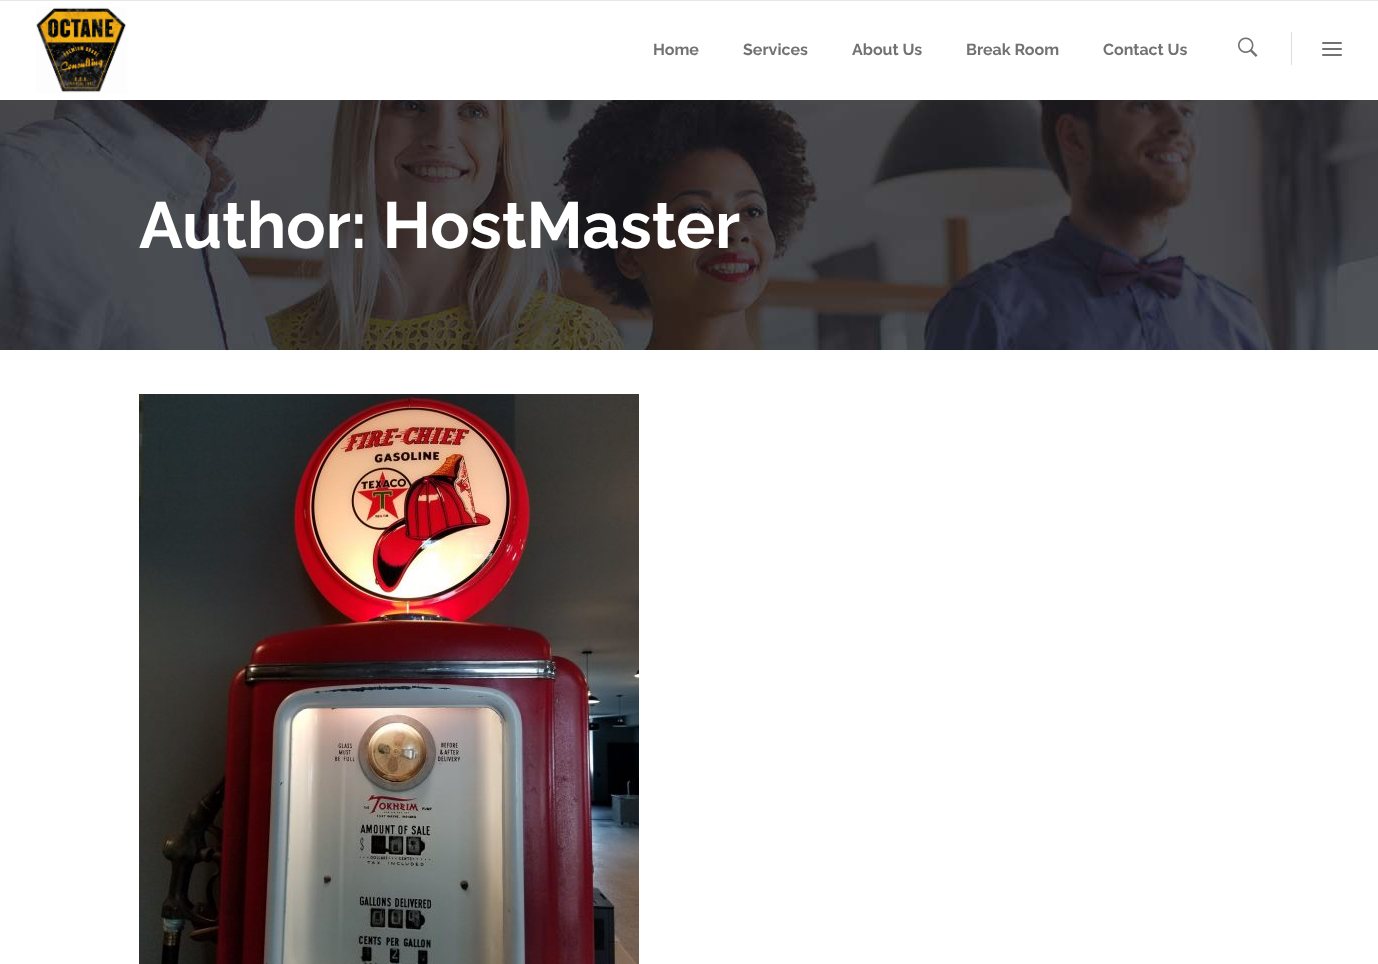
<!DOCTYPE html>
<meta charset="utf-8">
<style>body { margin: 0 } canvas { display: block }</style>
<canvas id="canvas" width="1378" height="964"></canvas>
<script type="module">
  const canvas = document.getElementById("canvas");
  const ctx = canvas.getContext("2d");
  ctx.miterLimit = 4;
  ctx.fontKerning = "normal";
  async function loadImage(src) {
    const img = new Image();
    img.src = src;
    await img.decode();
    return img;
  }

  ctx.fillStyle = "#ffffff";
  ctx.fillRect(0, 0, 1378, 964);
  ctx.fillStyle = "#e7e7e7";
  ctx.fillRect(0, 0, 1378, 1);
  ctx.drawImage(await loadImage("img1.png"), 36, 7, 91, 86);
  ctx.font = "bold 16px Raleway";
  ctx.fillStyle = "#727272";
  ctx.fillText("Home", 653, 55);
  ctx.fillText("Services", 743, 55);
  ctx.fillText("About Us", 852, 55);
  ctx.fillText("Break Room", 966, 55);
  ctx.fillText("Contact Us", 1103, 55);
  ctx.drawImage(await loadImage("img2.png"), 1238, 37, 20, 20);
  ctx.fillStyle = "#dddddd";
  ctx.fillRect(1291, 32, 1, 33);
  ctx.drawImage(await loadImage("img3.png"), 1322, 42, 20, 14);
  ctx.drawImage(await loadImage("img4.png"), 0, 100, 1378, 250);
  ctx.font = "bold 65px Raleway";
  ctx.fillStyle = "#ffffff";
  ctx.fillText("Author: HostMaster", 139, 248);
  ctx.drawImage(await loadImage("img5.png"), 139, 394, 500, 570);
</script>
